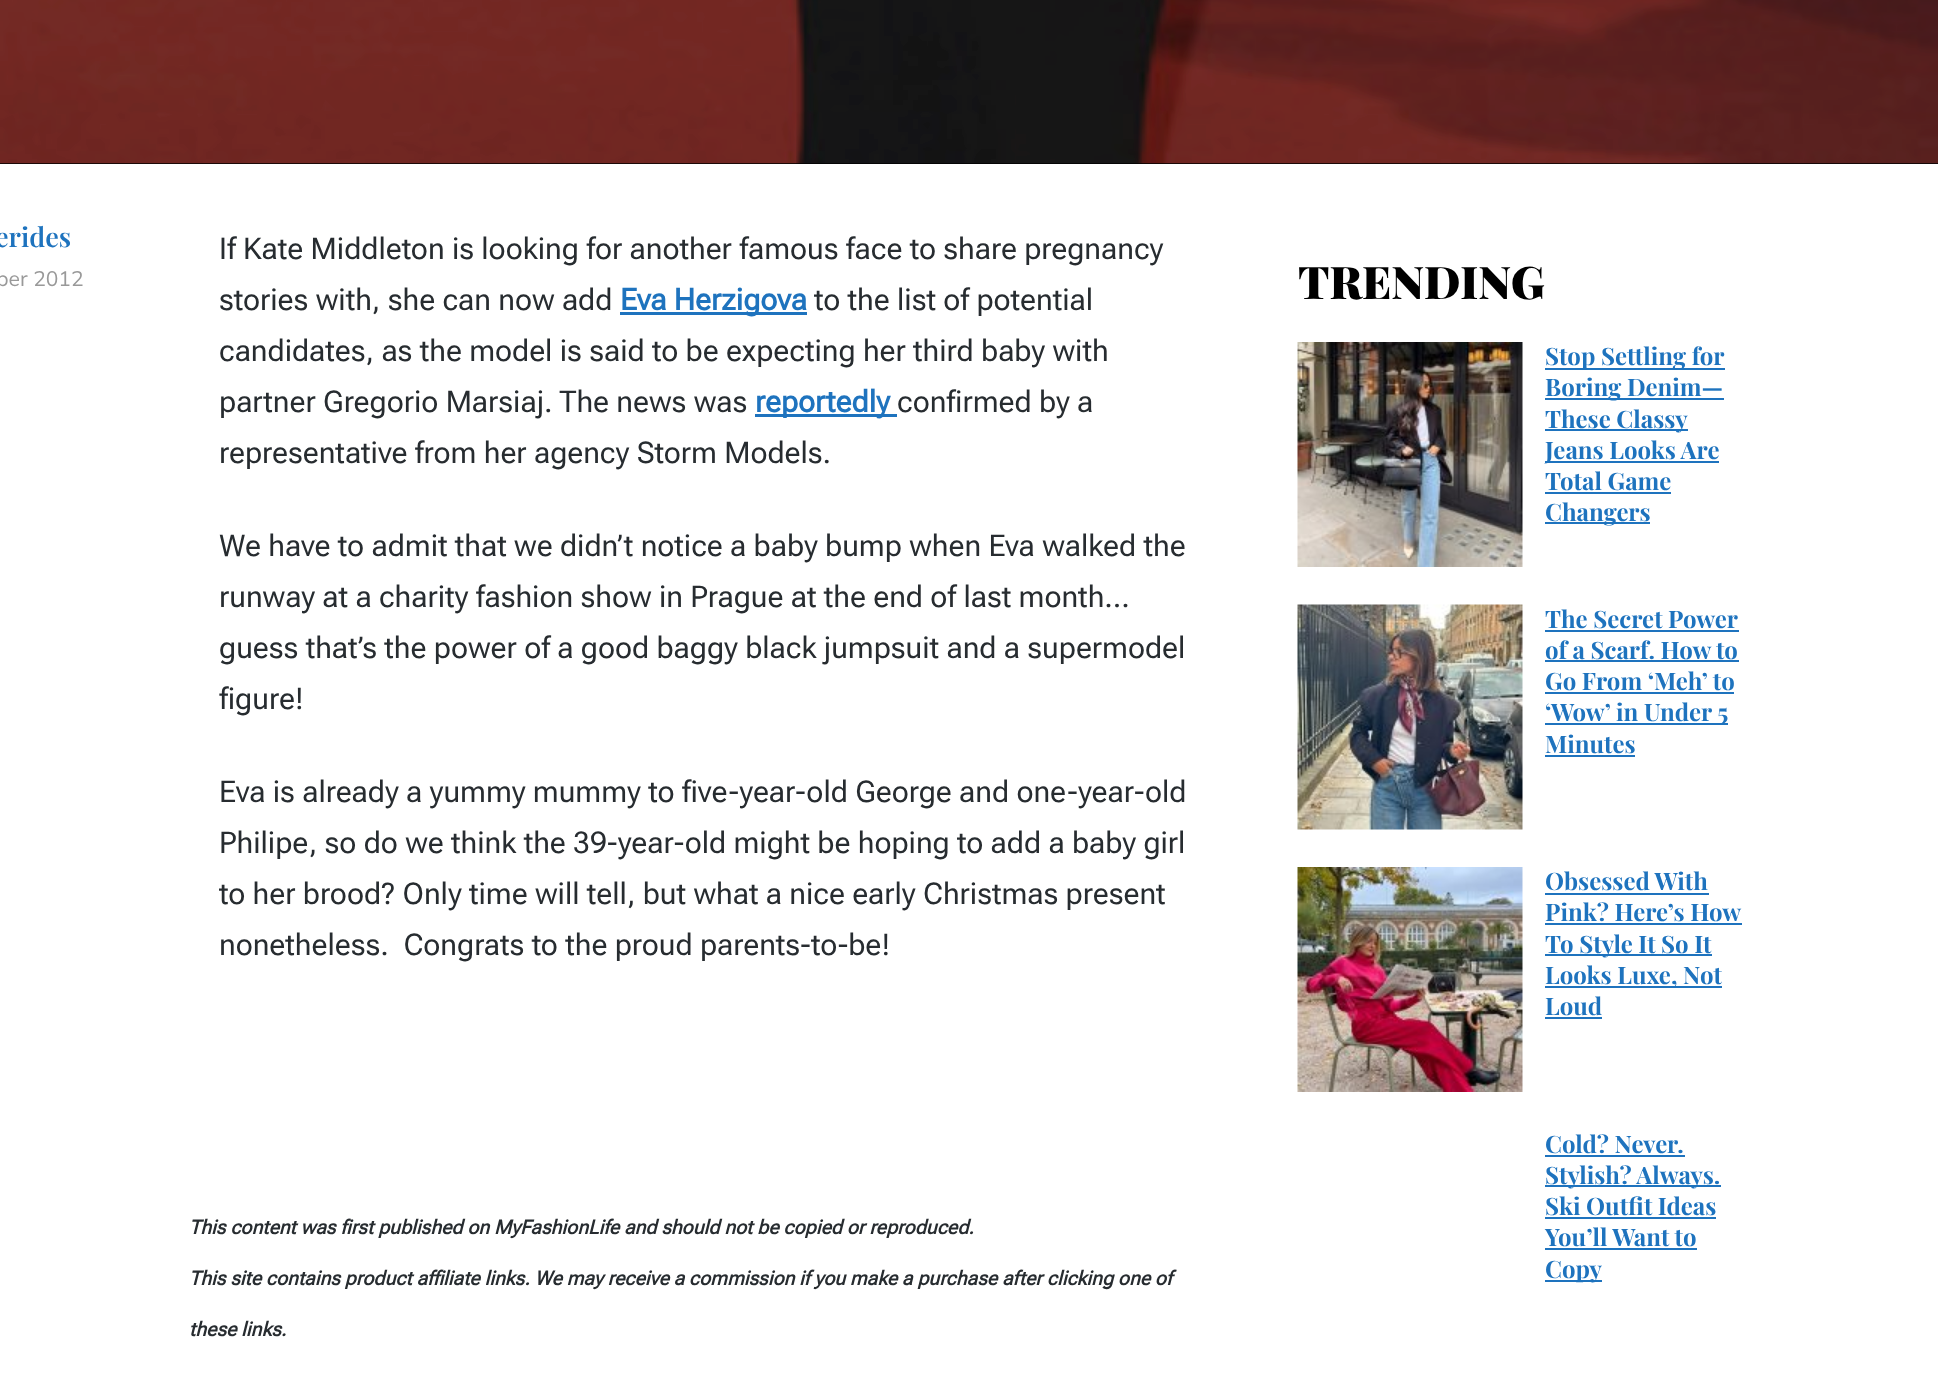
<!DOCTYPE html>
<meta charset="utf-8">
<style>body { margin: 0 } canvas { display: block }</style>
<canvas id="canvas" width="1938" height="1377"></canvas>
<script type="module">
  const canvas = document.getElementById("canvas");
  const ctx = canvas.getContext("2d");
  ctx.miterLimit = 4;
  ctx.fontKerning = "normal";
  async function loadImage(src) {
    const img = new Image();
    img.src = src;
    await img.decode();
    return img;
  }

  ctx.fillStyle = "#ffffff";
  ctx.fillRect(0, 0, 1938, 1377);
  ctx.fillStyle = "#000000";
  ctx.fillRect(0, 0, 1938, 164);
  ctx.drawImage(await loadImage("img1.png"), 0, 0, 1938, 164);
  ctx.font = "600 27px Playfair Display";
  ctx.fillStyle = "#1e73be";
  ctx.fillText("erides", -5, 247);
  ctx.font = "21px Mulish";
  ctx.fillStyle = "#999999";
  ctx.fillText("ber 2012", -4, 286);
  ctx.font = "30px Roboto Flex";
  ctx.fillStyle = "#272c30";
  ctx.fillText("If Kate Middleton is looking for another famous face to share pregnancy", 219, 259);
  ctx.fillText("stories with, she can now add", 219, 310);
  ctx.fillStyle = "#1e73be";
  ctx.fillRect(620, 312, 187, 3);
  ctx.font = "bold 30px Roboto Flex";
  ctx.fillText("Eva Herzigova", 620, 310);
  ctx.font = "30px Roboto Flex";
  ctx.fillStyle = "#272c30";
  ctx.fillText("to the list of potential", 814, 310);
  ctx.fillText("candidates, as the model is said to be expecting her third baby with", 219, 361);
  ctx.fillText("partner Gregorio Marsiaj. The news was", 219, 412);
  ctx.fillStyle = "#1e73be";
  ctx.fillRect(755, 414, 142, 3);
  ctx.font = "bold 30px Roboto Flex";
  ctx.fillText("reportedly", 755, 412);
  ctx.font = "30px Roboto Flex";
  ctx.fillStyle = "#272c30";
  ctx.fillText("confirmed by a", 897, 412);
  ctx.fillText("representative from her agency Storm Models.", 219, 463);
  ctx.fillText("We have to admit that we didn’t notice a baby bump when Eva walked the", 219, 556);
  ctx.fillText("runway at a charity fashion show in Prague at the end of last month…", 219, 607);
  ctx.fillText("guess that’s the power of a good baggy black jumpsuit and a supermodel", 219, 658);
  ctx.fillText("figure!", 219, 709);
  ctx.fillText("Eva is already a yummy mummy to five-year-old George and one-year-old", 219, 802);
  ctx.fillText("Philipe, so do we think the 39-year-old might be hoping to add a baby girl", 219, 853);
  ctx.fillText("to her brood? Only time will tell, but what a nice early Christmas present", 219, 904);
  ctx.fillText("nonetheless.  Congrats to the proud parents-to-be!", 219, 955);
  ctx.font = "italic bold 19.5px Roboto Flex";
  ctx.fillText("This content was first published on MyFashionLife and should not be copied or reproduced.", 189, 1234);
  ctx.fillText("This site contains product affiliate links. We may receive a commission if you make a purchase after clicking one of", 189, 1285);
  ctx.fillText("these links.", 189, 1336);
  ctx.font = "900 45px Playfair Display";
  ctx.fillStyle = "#000000";
  ctx.fillText("TRENDING", 1298, 299);
  ctx.drawImage(await loadImage("img2.png"), 1297, 342, 226, 225);
  ctx.fillStyle = "#1e73be";
  ctx.fillRect(1545, 368, 180, 2);
  ctx.font = "bold 24px Playfair Display";
  ctx.fillText("Stop Settling for", 1545, 365);
  ctx.fillRect(1545, 398, 179, 2);
  ctx.fillText("Boring Denim—", 1545, 396);
  ctx.fillRect(1545, 429, 143, 2);
  ctx.fillText("These Classy", 1545, 428);
  ctx.fillRect(1545, 461, 174, 2);
  ctx.fillText("Jeans Looks Are", 1545, 459);
  ctx.fillText("Total Game", 1545, 490);
  ctx.fillRect(1545, 492, 126, 2);
  ctx.fillRect(1545, 522, 105, 2);
  ctx.fillText("Changers", 1545, 521);
  ctx.drawImage(await loadImage("img3.png"), 1297, 604, 226, 226);
  ctx.fillText("The Secret Power", 1545, 628);
  ctx.fillRect(1545, 630, 194, 2);
  ctx.fillText("of a Scarf. How to", 1545, 659);
  ctx.fillRect(1545, 660, 194, 2);
  ctx.fillText("Go From ‘Meh’ to", 1545, 690);
  ctx.fillRect(1545, 692, 189, 2);
  ctx.fillRect(1545, 723, 183, 2);
  ctx.fillText("‘Wow’ in Under 5", 1545, 721);
  ctx.fillText("Minutes", 1545, 753);
  ctx.fillRect(1545, 755, 90, 2);
  ctx.drawImage(await loadImage("img4.png"), 1297, 867, 226, 225);
  ctx.fillText("Obsessed With", 1545, 890);
  ctx.fillRect(1545, 893, 164, 2);
  ctx.fillText("Pink? Here’s How", 1545, 921);
  ctx.fillRect(1545, 923, 197, 2);
  ctx.fillRect(1545, 954, 167, 2);
  ctx.fillText("To Style It So It", 1545, 953);
  ctx.fillRect(1545, 986, 177, 2);
  ctx.fillText("Looks Luxe, Not", 1545, 984);
  ctx.fillText("Loud", 1545, 1015);
  ctx.fillRect(1545, 1017, 57, 2);
  ctx.fillText("Cold? Never.", 1545, 1153);
  ctx.fillRect(1545, 1155, 140, 2);
  ctx.fillRect(1545, 1185, 176, 2);
  ctx.fillText("Stylish? Always.", 1545, 1184);
  ctx.fillText("Ski Outfit Ideas", 1545, 1215);
  ctx.fillRect(1545, 1217, 171, 2);
  ctx.fillText("You’ll Want to", 1545, 1246);
  ctx.fillRect(1545, 1248, 152, 2);
  ctx.fillRect(1545, 1280, 57, 2);
  ctx.fillText("Copy", 1545, 1278);
</script>
